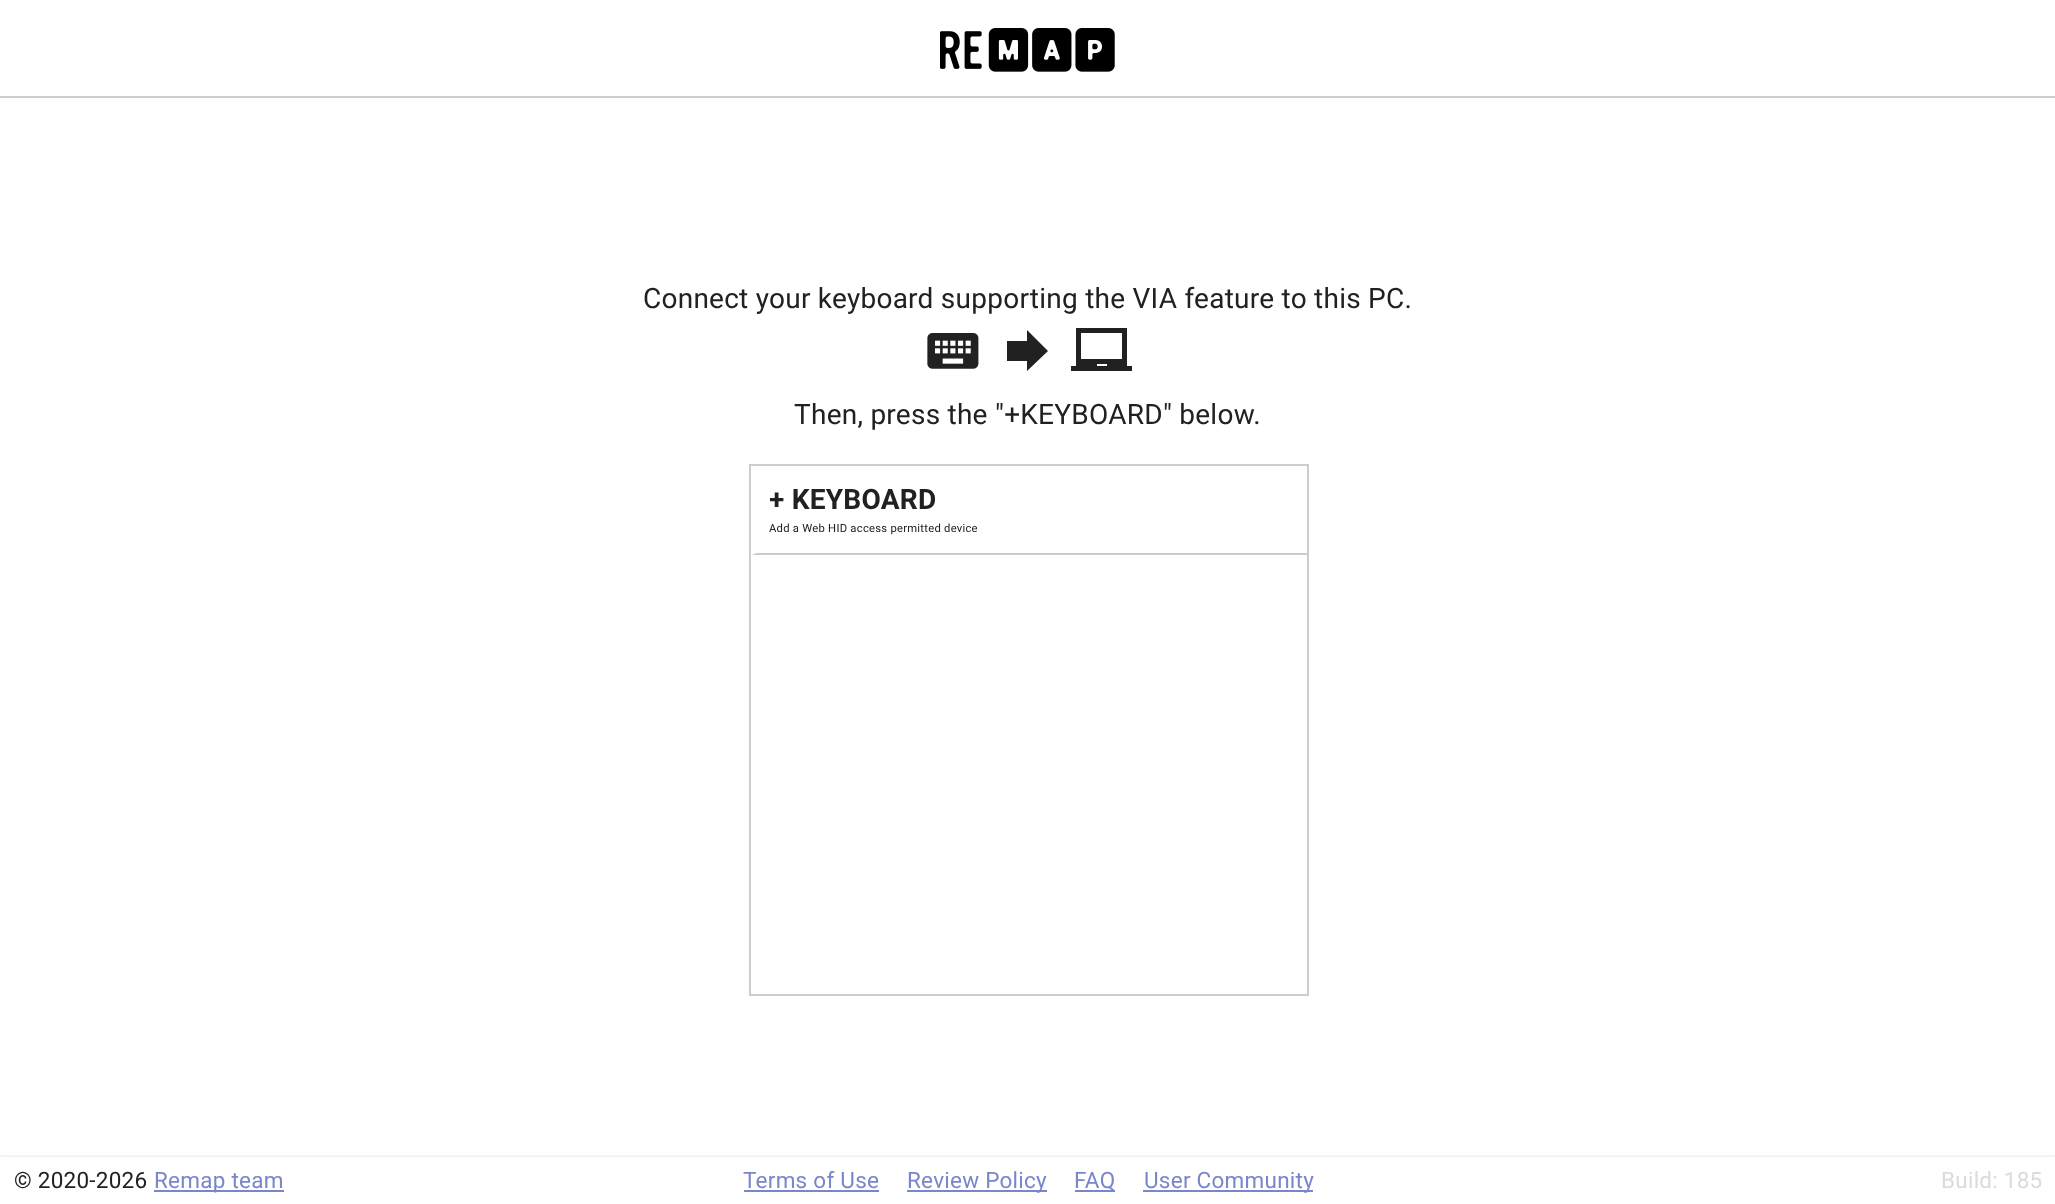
<!DOCTYPE html>
<meta charset="utf-8">
<style>body { margin: 0 } canvas { display: block }</style>
<canvas id="canvas" width="2055" height="1204"></canvas>
<script type="module">
  const canvas = document.getElementById("canvas");
  const ctx = canvas.getContext("2d");
  ctx.miterLimit = 4;
  ctx.fontKerning = "normal";
  async function loadImage(src) {
    const img = new Image();
    img.src = src;
    await img.decode();
    return img;
  }

  ctx.fillStyle = "#ffffff";
  ctx.fillRect(0, 0, 2055, 1204);
  ctx.fillStyle = "#cccccc";
  ctx.fillRect(0, 96, 2055, 2);
  ctx.drawImage(await loadImage("img1.png"), 940, 28, 175, 44);
  ctx.letterSpacing = "0.25px";
  ctx.font = "28px Roboto";
  ctx.fillStyle = "#212121";
  ctx.fillText("Connect your keyboard supporting the VIA feature to this PC.", 643, 308);
  ctx.drawImage(await loadImage("img2.png"), 927, 333, 52, 36);
  ctx.beginPath();
  ctx.moveTo(1027, 341);
  ctx.lineTo(1027, 330);
  ctx.lineTo(1048, 351);
  ctx.lineTo(1027, 371);
  ctx.lineTo(1027, 361);
  ctx.lineTo(1007, 361);
  ctx.lineTo(1007, 341);
  ctx.closePath();
  ctx.fill();
  ctx.beginPath();
  ctx.moveTo(1127, 366);
  ctx.lineTo(1127, 328);
  ctx.lineTo(1076, 328);
  ctx.lineTo(1076, 366);
  ctx.lineTo(1071, 366);
  ctx.lineTo(1071, 371);
  ctx.lineTo(1132, 371);
  ctx.lineTo(1132, 366);
  ctx.closePath();
  ctx.moveTo(1107, 366);
  ctx.lineTo(1097, 366);
  ctx.lineTo(1097, 364);
  ctx.lineTo(1107, 364);
  ctx.closePath();
  ctx.moveTo(1122, 359);
  ctx.lineTo(1081, 359);
  ctx.lineTo(1081, 333);
  ctx.lineTo(1122, 333);
  ctx.closePath();
  ctx.fill();
  ctx.fillText("Then, press the \"+KEYBOARD\" below.", 794, 424);
  ctx.strokeStyle = "#cccccc";
  ctx.lineWidth = 2;
  ctx.strokeRect(750, 465, 558, 530);
  ctx.fillStyle = "#cccccc";
  ctx.beginPath();
  ctx.moveTo(1307, 555);
  ctx.lineTo(751, 555);
  ctx.lineTo(756, 553);
  ctx.lineTo(1307, 553);
  ctx.closePath();
  ctx.fill();
  ctx.fillStyle = "#ffffff";
  ctx.beginPath();
  ctx.moveTo(751, 555);
  ctx.lineTo(751, 466);
  ctx.lineTo(756, 466);
  ctx.lineTo(756, 553);
  ctx.closePath();
  ctx.fill();
  ctx.save();
  ctx.beginPath();
  ctx.rect(770, 480, 523, 42);
  ctx.clip();
  ctx.font = "bold 28px Roboto";
  ctx.fillStyle = "#212121";
  ctx.fillText("+ KEYBOARD", 769, 509);
  ctx.restore();
  ctx.font = "11.25px Roboto";
  ctx.fillStyle = "#212121";
  ctx.fillText("Add a Web HID access permitted device", 769, 532);
  ctx.save();
  ctx.beginPath();
  ctx.rect(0, 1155, 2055, 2);
  ctx.clip();
  ctx.fillStyle = "rgba(0, 0, 0, 0.14)";
  ctx.filter = "blur(2px)";
  ctx.beginPath();
  ctx.rect(0, 1157, 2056, 47);
  ctx.fill();
  ctx.filter = "none";
  ctx.restore();
  ctx.font = "22.5px Roboto";
  ctx.fillText("© 2020-2026", 14, 1188);
  ctx.fillStyle = "#7986cb";
  ctx.fillRect(154, 1190, 130, 2);
  ctx.fillText("Remap team", 154, 1188);
  ctx.fillText("Terms of Use", 743, 1188);
  ctx.fillRect(744, 1190, 135, 2);
  ctx.fillRect(907, 1190, 140, 2);
  ctx.fillText("Review Policy", 907, 1188);
  ctx.fillRect(1075, 1190, 40, 2);
  ctx.fillText("FAQ", 1074, 1188);
  ctx.fillRect(1143, 1190, 170, 2);
  ctx.fillText("User Community", 1144, 1188);
  ctx.fillStyle = "#dbdbdb";
  ctx.fillText("Build: 185", 1941, 1188);
</script>
